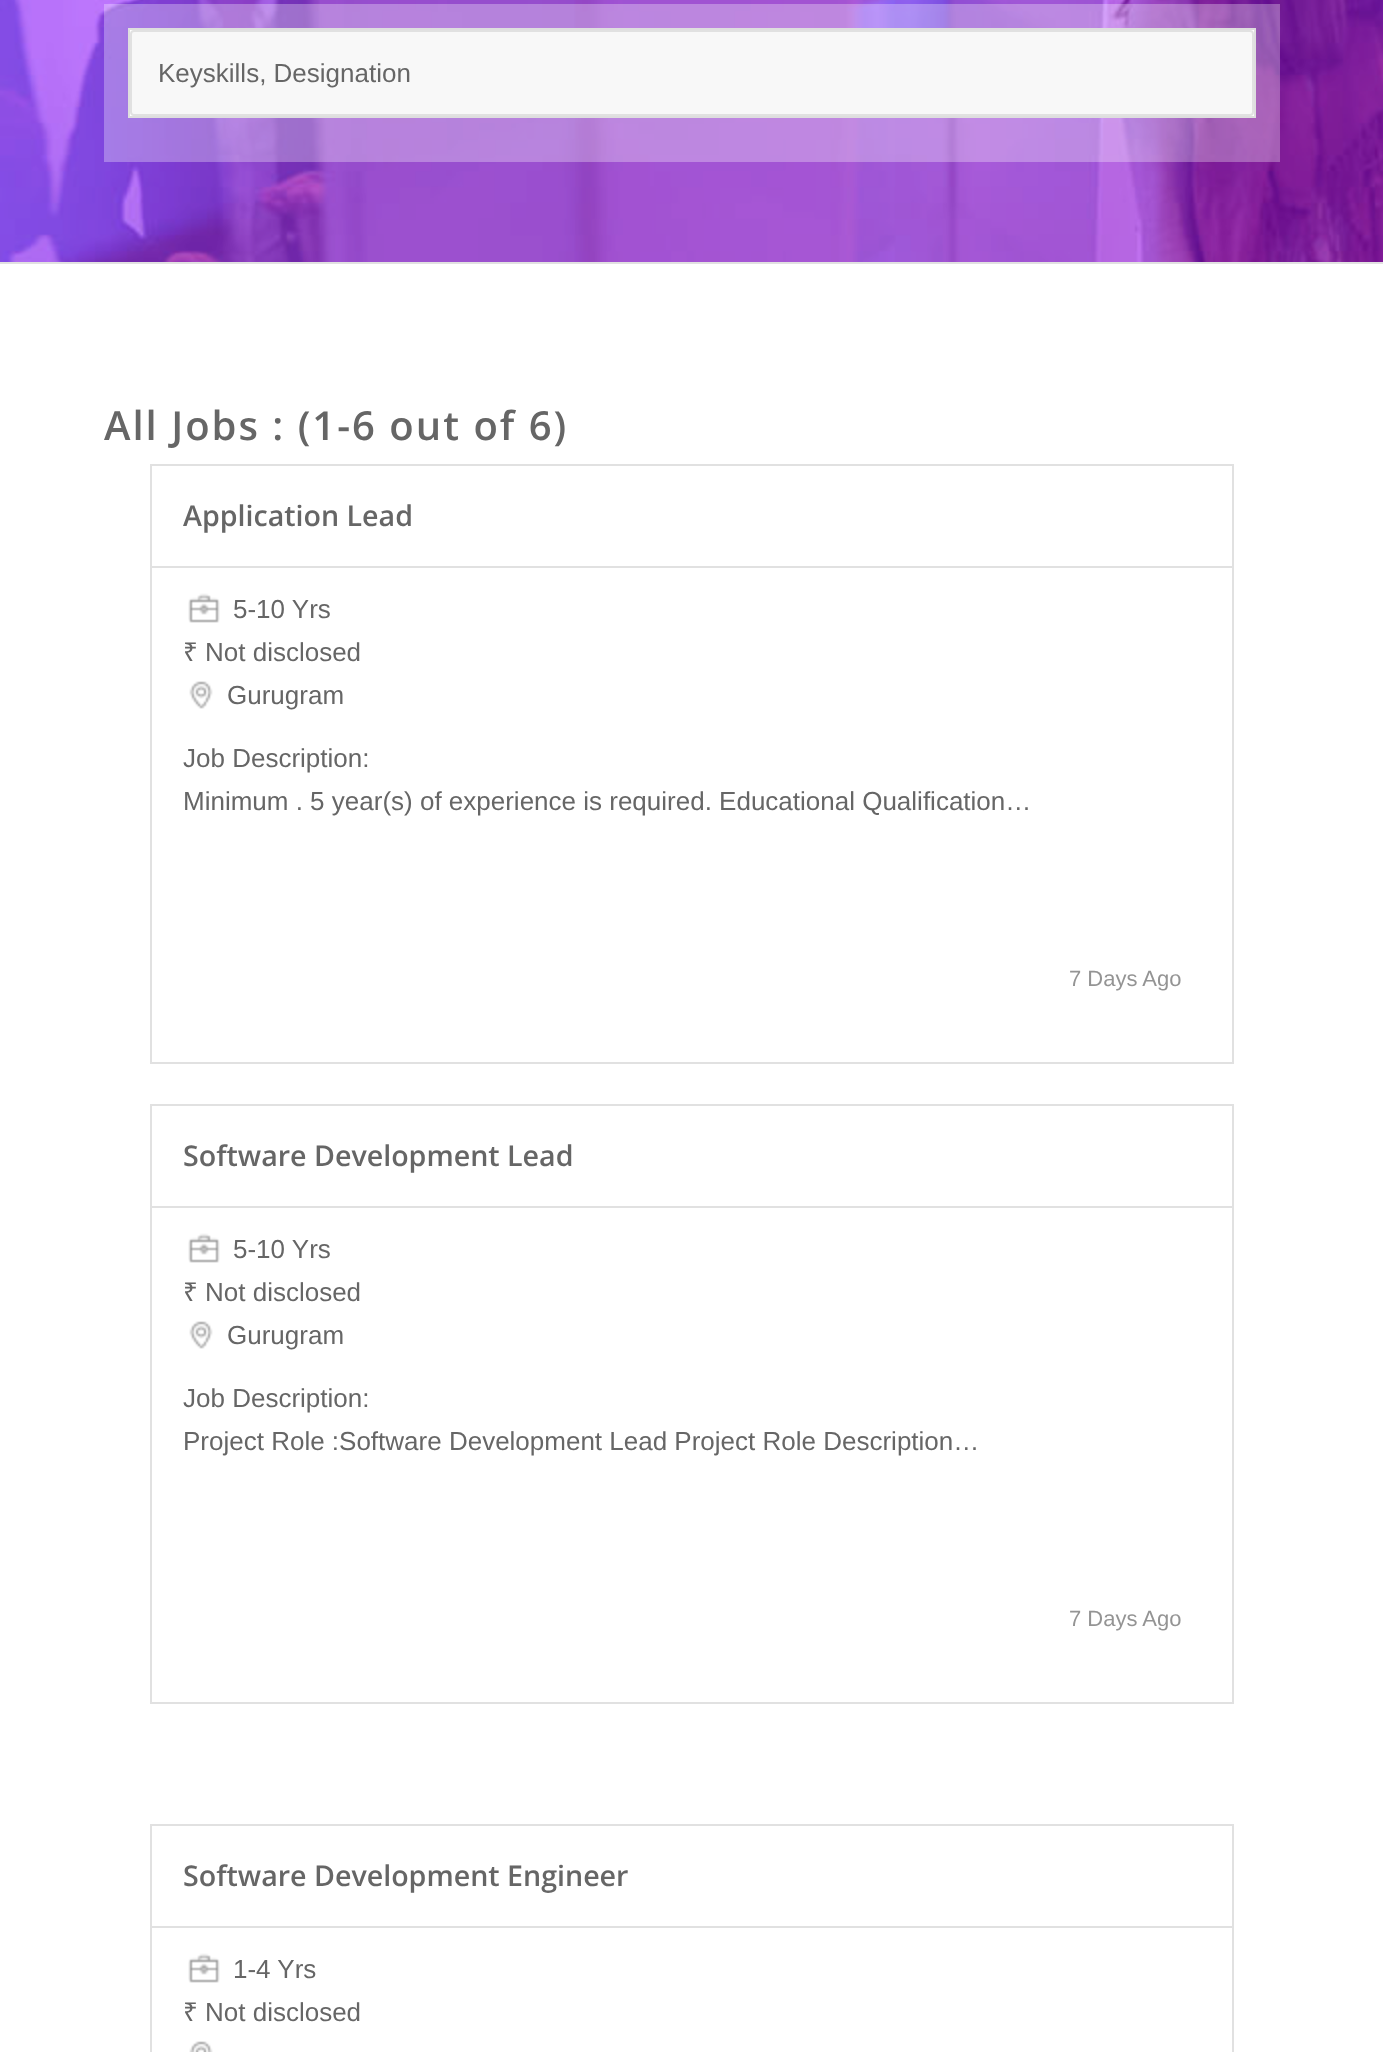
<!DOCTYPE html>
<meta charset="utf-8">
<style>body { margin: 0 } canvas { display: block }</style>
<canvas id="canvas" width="1383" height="2052"></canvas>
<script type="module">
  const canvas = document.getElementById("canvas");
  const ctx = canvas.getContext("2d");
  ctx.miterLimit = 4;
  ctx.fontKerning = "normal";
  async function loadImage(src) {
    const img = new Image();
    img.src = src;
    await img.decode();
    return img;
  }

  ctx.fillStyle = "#ffffff";
  ctx.fillRect(0, 0, 1383, 2052);
  ctx.drawImage(await loadImage("img1.png"), 0, 0, 1383, 262);
  ctx.fillStyle = "rgba(255, 255, 255, 0.3)";
  ctx.fillRect(104, 4, 1176, 158);
  ctx.fillStyle = "#ffffff";
  ctx.beginPath();
  ctx.rect(129, 29, 1126, 88);
  ctx.fill();
  ctx.strokeStyle = "#dedede";
  ctx.lineWidth = 2;
  ctx.stroke();
  ctx.fillStyle = "#f8f8f8";
  ctx.beginPath();
  ctx.roundRect(131, 31, 1122, 84, 3);
  ctx.fill();
  ctx.strokeStyle = "#e1e1e1";
  ctx.stroke();
  ctx.font = "26px Liberation Sans";
  ctx.fillStyle = "#666666";
  ctx.fillText("Keyskills, Designation", 158, 82);
  ctx.fillStyle = "#e1e1e1";
  ctx.fillRect(0, 262, 1383, 2);
  ctx.letterSpacing = "2px";
  ctx.font = "600 40px Open Sans";
  ctx.fillStyle = "#666666";
  ctx.fillText("All Jobs : (1-6 out of 6)", 104, 440);
  ctx.strokeRect(151, 465, 1082, 598);
  ctx.fillStyle = "#e1e1e1";
  ctx.fillRect(152, 566, 1080, 2);
  ctx.letterSpacing = "0px";
  ctx.font = "600 28.6px Open Sans";
  ctx.fillStyle = "#666666";
  ctx.fillText("Application Lead", 183, 526);
  ctx.drawImage(await loadImage("img2.png"), 188, 593, 32, 30);
  ctx.font = "26px Liberation Sans";
  ctx.fillText("5-10 Yrs", 233, 618);
  ctx.font = "26px Noto Sans";
  ctx.fillText("₹", 183, 661);
  ctx.font = "26px Liberation Sans";
  ctx.fillText("Not disclosed", 205, 661);
  ctx.drawImage(await loadImage("img3.png"), 189, 681, 24, 28);
  ctx.fillText("Gurugram", 227, 704);
  ctx.fillText("Job Description:", 183, 767);
  ctx.fillText("Minimum . 5 year(s) of experience is required. Educational Qualification…", 183, 810);
  ctx.font = "22px Liberation Sans";
  ctx.fillStyle = "#949494";
  ctx.fillText("7 Days Ago", 1069, 986);
  ctx.strokeRect(151, 1105, 1082, 598);
  ctx.fillStyle = "#e1e1e1";
  ctx.fillRect(152, 1206, 1080, 2);
  ctx.font = "600 28.6px Open Sans";
  ctx.fillStyle = "#666666";
  ctx.fillText("Software Development Lead", 183, 1166);
  ctx.drawImage(await loadImage("img2.png"), 188, 1233, 32, 30);
  ctx.font = "26px Liberation Sans";
  ctx.fillText("5-10 Yrs", 233, 1258);
  ctx.font = "26px Noto Sans";
  ctx.fillText("₹", 183, 1301);
  ctx.font = "26px Liberation Sans";
  ctx.fillText("Not disclosed", 205, 1301);
  ctx.drawImage(await loadImage("img3.png"), 189, 1321, 24, 28);
  ctx.fillText("Gurugram", 227, 1344);
  ctx.fillText("Job Description:", 183, 1407);
  ctx.fillText("Project Role :Software Development Lead Project Role Description…", 183, 1450);
  ctx.font = "22px Liberation Sans";
  ctx.fillStyle = "#949494";
  ctx.fillText("7 Days Ago", 1069, 1626);
  ctx.strokeRect(151, 1825, 1082, 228);
  ctx.fillStyle = "#e1e1e1";
  ctx.fillRect(152, 1926, 1080, 2);
  ctx.font = "600 28.6px Open Sans";
  ctx.fillStyle = "#666666";
  ctx.fillText("Software Development Engineer", 183, 1886);
  ctx.drawImage(await loadImage("img2.png"), 188, 1953, 32, 30);
  ctx.font = "26px Liberation Sans";
  ctx.fillText("1-4 Yrs", 233, 1978);
  ctx.font = "26px Noto Sans";
  ctx.fillText("₹", 183, 2021);
  ctx.font = "26px Liberation Sans";
  ctx.fillText("Not disclosed", 205, 2021);
  ctx.drawImage(await loadImage("img4.png"), 189, 2041, 24, 11);
</script>
